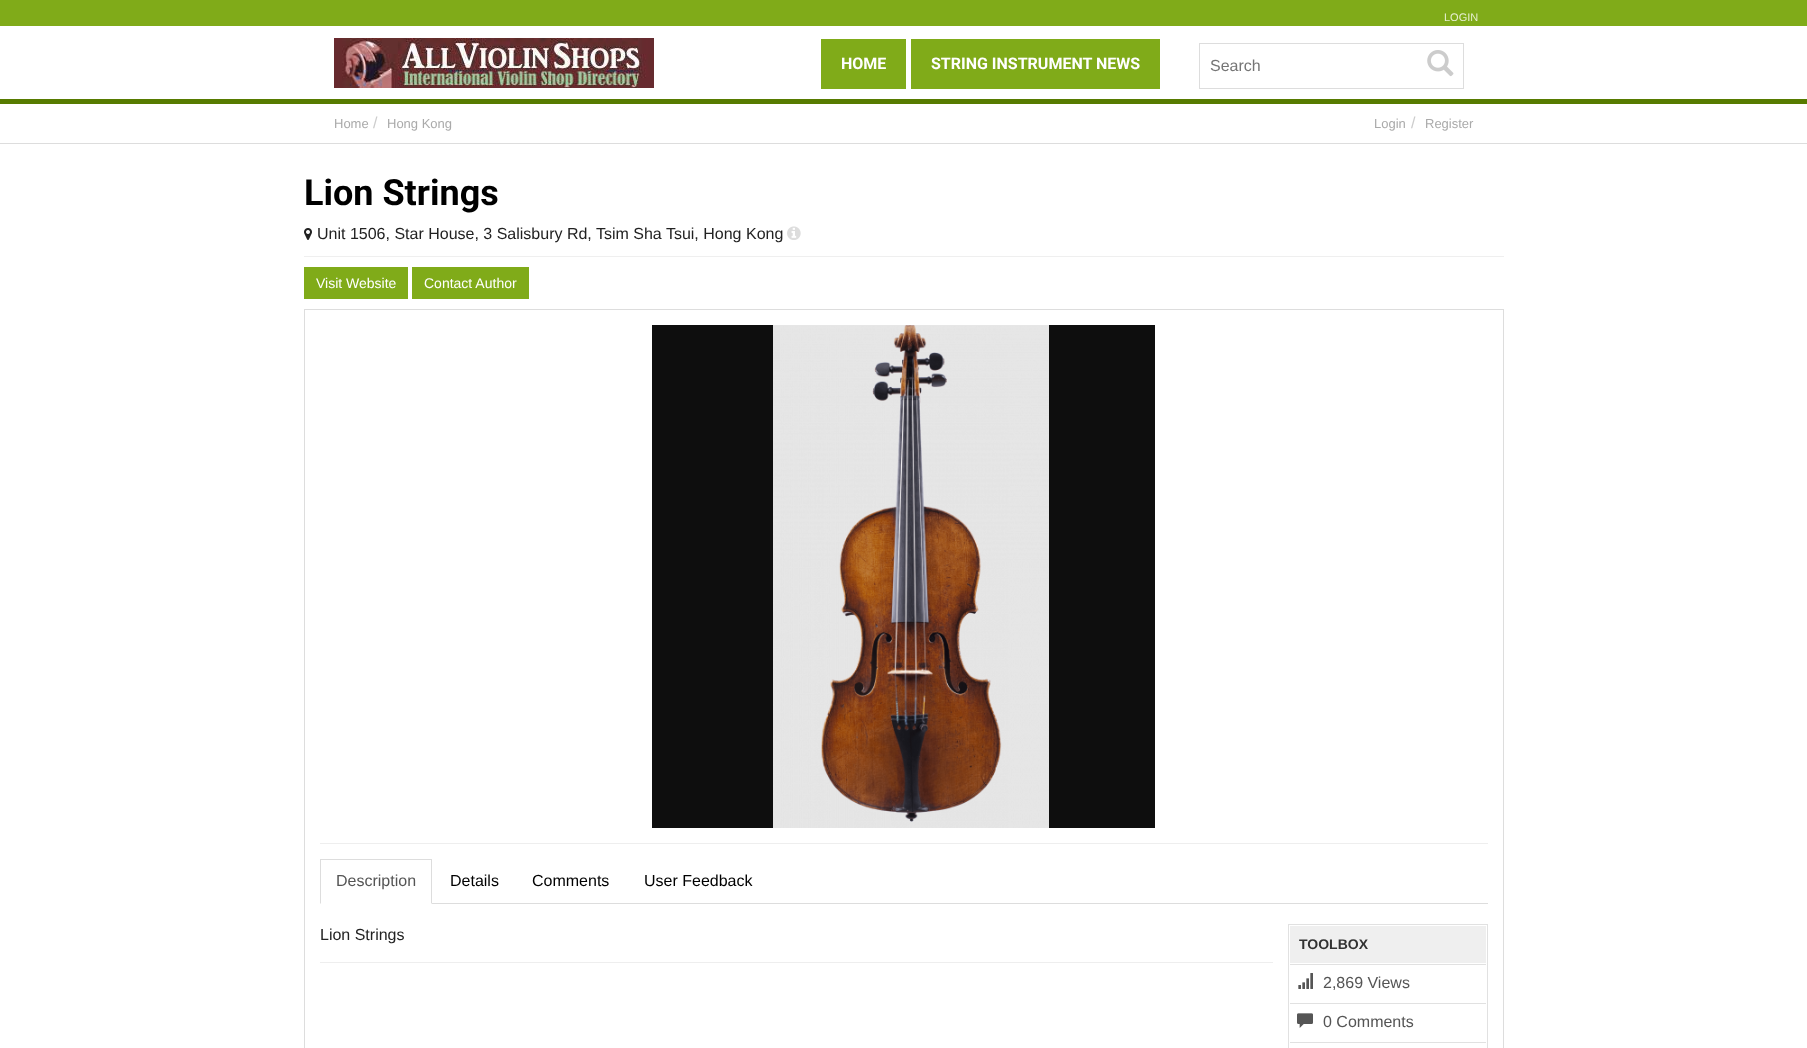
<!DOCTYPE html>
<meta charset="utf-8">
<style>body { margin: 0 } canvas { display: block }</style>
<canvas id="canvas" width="1807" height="1048"></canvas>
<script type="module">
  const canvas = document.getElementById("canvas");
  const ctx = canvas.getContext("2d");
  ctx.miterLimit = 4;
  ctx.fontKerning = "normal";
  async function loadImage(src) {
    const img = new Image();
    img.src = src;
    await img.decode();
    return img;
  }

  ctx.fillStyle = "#ffffff";
  ctx.fillRect(0, 0, 1807, 1048);
  ctx.fillStyle = "#80ab19";
  ctx.fillRect(0, 0, 1807, 26);
  ctx.font = "11px Liberation Sans";
  ctx.fillStyle = "#e6eed1";
  ctx.fillText("LOGIN", 1444, 21);
  ctx.fillStyle = "#577b00";
  ctx.fillRect(0, 99, 1807, 5);
  ctx.drawImage(await loadImage("img1.png"), 334, 38, 320, 50);
  ctx.fillStyle = "#80ab19";
  ctx.fillRect(821, 39, 85, 50);
  ctx.font = "bold 16px Roboto";
  ctx.fillStyle = "#ffffff";
  ctx.fillText("HOME", 841, 69);
  ctx.fillStyle = "#80ab19";
  ctx.fillRect(911, 39, 249, 50);
  ctx.fillStyle = "#ffffff";
  ctx.fillText("STRING INSTRUMENT NEWS", 931, 69);
  ctx.strokeStyle = "#dddddd";
  ctx.strokeRect(1199.5, 43.5, 264, 45);
  ctx.font = "16px Liberation Sans";
  ctx.fillStyle = "#757575";
  ctx.fillText("Search", 1210, 71);
  ctx.drawImage(await loadImage("img2.png"), 1427, 50, 27, 27);
  ctx.fillStyle = "#dddddd";
  ctx.fillRect(0, 143, 1807, 1);
  ctx.font = "13px Liberation Sans";
  ctx.fillStyle = "#aaaaaa";
  ctx.fillText("Home", 334, 128);
  ctx.font = "16px Liberation Sans";
  ctx.fillStyle = "#cccccc";
  ctx.fillText("/", 373, 128);
  ctx.font = "13px Liberation Sans";
  ctx.fillStyle = "#aaaaaa";
  ctx.fillText("Hong Kong", 387, 128);
  ctx.fillText("Login", 1374, 128);
  ctx.font = "16px Liberation Sans";
  ctx.fillStyle = "#cccccc";
  ctx.fillText("/", 1411, 128);
  ctx.font = "13px Liberation Sans";
  ctx.fillStyle = "#aaaaaa";
  ctx.fillText("Register", 1425, 128);
  ctx.font = "bold 36px Roboto";
  ctx.fillStyle = "#000000";
  ctx.fillText("Lion Strings", 304, 205);
  ctx.drawImage(await loadImage("img3.png"), 304, 228, 8, 12);
  ctx.font = "16px Liberation Sans";
  ctx.fillStyle = "#222222";
  ctx.fillText("Unit 1506, Star House, 3 Salisbury Rd, Tsim Sha Tsui, Hong Kong", 317, 239);
  ctx.drawImage(await loadImage("img4.png"), 787, 226, 14, 14);
  ctx.fillStyle = "#efefef";
  ctx.fillRect(304, 256, 1200, 1);
  ctx.fillStyle = "#80ab19";
  ctx.fillRect(304, 267, 104, 32);
  ctx.font = "14px Liberation Sans";
  ctx.fillStyle = "#ffffff";
  ctx.fillText("Visit Website", 316, 288);
  ctx.fillStyle = "#80ab19";
  ctx.fillRect(412, 267, 117, 32);
  ctx.fillStyle = "#ffffff";
  ctx.fillText("Contact Author", 424, 288);
  ctx.strokeRect(304.5, 309.5, 1199, 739);
  ctx.drawImage(await loadImage("img5.png"), 652, 325, 503, 503);
  ctx.fillStyle = "#eeeeee";
  ctx.fillRect(320, 843, 1168, 1);
  ctx.fillStyle = "#dddddd";
  ctx.fillRect(432, 903, 1056, 1);
  ctx.fillRect(320, 859, 112, 1);
  ctx.beginPath();
  ctx.moveTo(432, 859);
  ctx.lineTo(432, 904);
  ctx.lineTo(431, 903);
  ctx.lineTo(431, 860);
  ctx.closePath();
  ctx.fill();
  ctx.beginPath();
  ctx.moveTo(320, 904);
  ctx.lineTo(320, 859);
  ctx.lineTo(321, 860);
  ctx.lineTo(321, 903);
  ctx.closePath();
  ctx.fill();
  ctx.font = "16px Liberation Sans";
  ctx.fillStyle = "#555555";
  ctx.fillText("Description", 336, 886);
  ctx.fillStyle = "#000000";
  ctx.fillText("Details", 450, 886);
  ctx.fillText("Comments", 532, 886);
  ctx.fillText("User Feedback", 644, 886);
  ctx.fillStyle = "#222222";
  ctx.fillText("Lion Strings", 320, 940);
  ctx.fillStyle = "#eeeeee";
  ctx.fillRect(320, 962, 953, 1);
  ctx.strokeStyle = "#e1e1e1";
  ctx.strokeRect(1288.5, 924.5, 199, 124);
  ctx.fillStyle = "#efefef";
  ctx.fillRect(1290, 926, 196, 37);
  ctx.font = "bold 14px Liberation Sans";
  ctx.fillStyle = "#323232";
  ctx.fillText("TOOLBOX", 1299, 949);
  ctx.fillStyle = "#e1e1e1";
  ctx.fillRect(1290, 964, 196, 1);
  ctx.drawImage(await loadImage("img6.png"), 1298, 973, 15, 16);
  ctx.font = "16px Liberation Sans";
  ctx.fillStyle = "#555555";
  ctx.fillText("2,869 Views", 1323, 988);
  ctx.fillStyle = "#e1e1e1";
  ctx.fillRect(1290, 1003, 196, 1);
  ctx.drawImage(await loadImage("img7.png"), 1297, 1013, 16, 15);
  ctx.fillStyle = "#555555";
  ctx.fillText("0 Comments", 1323, 1027);
  ctx.fillStyle = "#e1e1e1";
  ctx.fillRect(1290, 1042, 196, 1);
</script>
